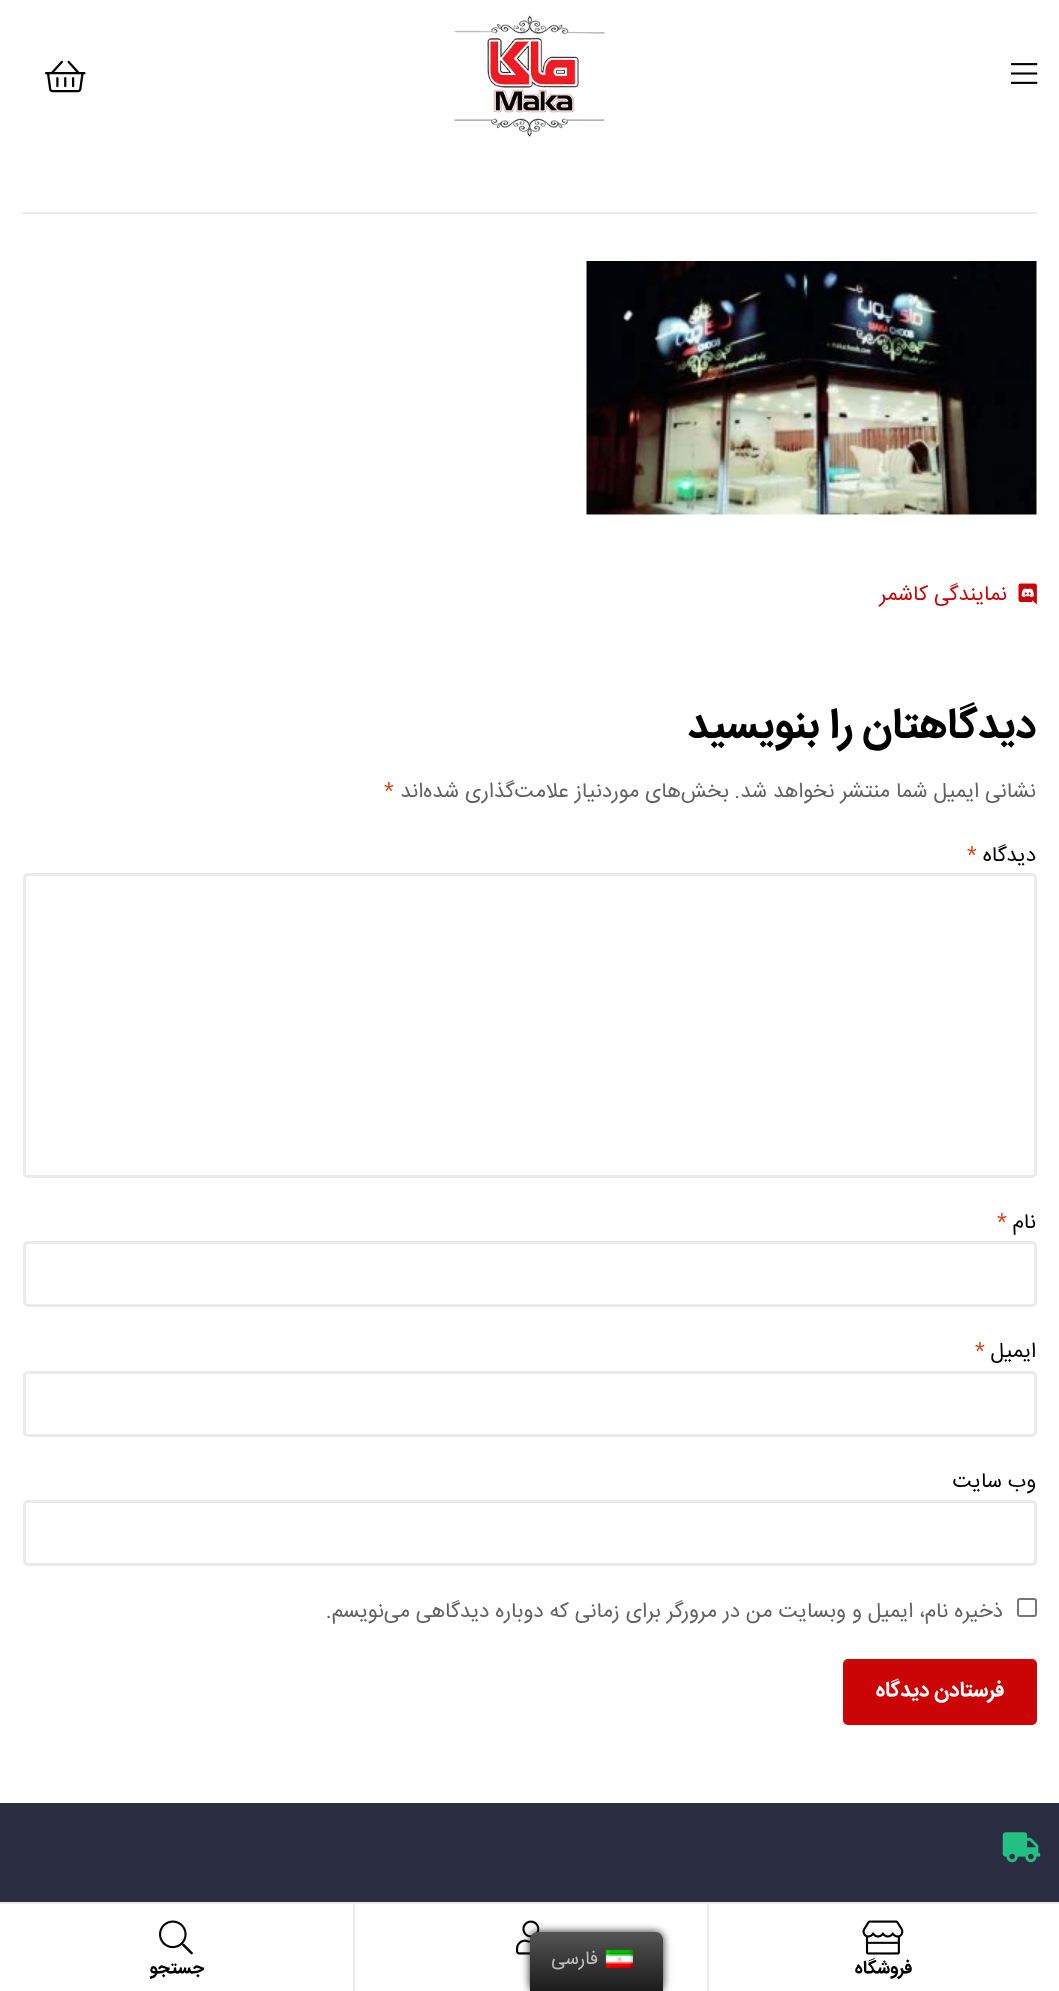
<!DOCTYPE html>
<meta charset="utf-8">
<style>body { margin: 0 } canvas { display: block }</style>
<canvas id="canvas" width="1059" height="1991"></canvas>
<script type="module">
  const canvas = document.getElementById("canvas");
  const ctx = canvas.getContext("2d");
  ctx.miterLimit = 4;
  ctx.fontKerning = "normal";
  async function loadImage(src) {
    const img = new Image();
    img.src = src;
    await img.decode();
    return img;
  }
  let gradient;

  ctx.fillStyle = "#ffffff";
  ctx.fillRect(0, 0, 1059, 1991);
  ctx.drawImage(await loadImage("img1.png"), 1011, 63, 27, 21);
  ctx.drawImage(await loadImage("img2.png"), 454, 15, 151, 122);
  ctx.drawImage(await loadImage("img3.png"), 45, 60, 41, 33);
  ctx.fillStyle = "#ebebeb";
  ctx.fillRect(23, 212, 1014, 2);
  ctx.drawImage(await loadImage("img4.png"), 586, 261, 451, 254);
  ctx.drawImage(await loadImage("img5.png"), 1018, 583, 19, 22);
  ctx.direction = "rtl";
  ctx.font = "21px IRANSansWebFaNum";
  ctx.fillStyle = "#cb0505";
  ctx.fillText("نمایندگی کاشمر", 1007, 600);
  ctx.font = "bold 42px IRANSansWebFaNum";
  ctx.fillStyle = "#000000";
  ctx.fillText("دیدگاهتان را بنویسید", 1036, 737);
  ctx.font = "21px IRANSansWebFaNum";
  ctx.fillStyle = "#626262";
  ctx.fillText("نشانی ایمیل شما منتشر نخواهد شد.", 1036, 797);
  ctx.fillText("بخش‌های موردنیاز علامت‌گذاری شده‌اند", 729, 797);
  ctx.direction = "ltr";
  ctx.fillStyle = "#e2401c";
  ctx.fillText("*", 384, 797);
  ctx.direction = "rtl";
  ctx.fillStyle = "#000000";
  ctx.fillText("دیدگاه", 1036, 861);
  ctx.direction = "ltr";
  ctx.fillStyle = "#e2401c";
  ctx.fillText("*", 967, 861);
  ctx.beginPath();
  ctx.roundRect(24.5, 874.5, 1011, 302, 3.5);
  ctx.strokeStyle = "#ebebeb";
  ctx.lineWidth = 3;
  ctx.stroke();
  ctx.direction = "rtl";
  ctx.fillStyle = "#000000";
  ctx.fillText("نام", 1036, 1228);
  ctx.direction = "ltr";
  ctx.fillStyle = "#e2401c";
  ctx.fillText("*", 997, 1228);
  ctx.beginPath();
  ctx.roundRect(24.5, 1242.5, 1011, 63, 3.5);
  ctx.stroke();
  ctx.direction = "rtl";
  ctx.fillStyle = "#000000";
  ctx.fillText("ایمیل", 1036, 1357);
  ctx.direction = "ltr";
  ctx.fillStyle = "#e2401c";
  ctx.fillText("*", 975, 1357);
  ctx.beginPath();
  ctx.roundRect(24.5, 1372.5, 1011, 63, 3.5);
  ctx.stroke();
  ctx.direction = "rtl";
  ctx.fillStyle = "#000000";
  ctx.fillText("وب‌ سایت", 1036, 1487);
  ctx.beginPath();
  ctx.roundRect(24.5, 1501.5, 1011, 63, 3.5);
  ctx.stroke();
  ctx.beginPath();
  ctx.roundRect(1018, 1599, 18, 17, 2);
  ctx.strokeStyle = "#767676";
  ctx.lineWidth = 2;
  ctx.stroke();
  ctx.fillStyle = "#626262";
  ctx.fillText("ذخیره نام، ایمیل و وبسایت من در مرورگر برای زمانی که دوباره دیدگاهی می‌نویسم.", 1003, 1617);
  ctx.fillStyle = "#cb0505";
  ctx.beginPath();
  ctx.roundRect(844.5, 1660.5, 191, 63, 3.5);
  ctx.fill();
  ctx.strokeStyle = "#cb0505";
  ctx.lineWidth = 3;
  ctx.stroke();
  ctx.font = "bold 21px IRANSansWebFaNum";
  ctx.fillStyle = "#ffffff";
  ctx.fillText("فرستادن دیدگاه", 1004, 1696);
  ctx.fillStyle = "#2b2d43";
  ctx.fillRect(0, 1803, 1059, 99);
  ctx.drawImage(await loadImage("img6.png"), 1002, 1832, 39, 31);
  ctx.fillStyle = "#ebebeb";
  ctx.fillRect(0, 1902, 1059, 2);
  ctx.fillRect(707, 1904, 2, 87);
  ctx.drawImage(await loadImage("img7.png"), 862, 1920, 42, 35);
  ctx.font = "bold 18px IRANSansWebFaNum";
  ctx.fillStyle = "#000000";
  ctx.fillText("فروشگاه", 912, 1973);
  ctx.fillStyle = "#ebebeb";
  ctx.fillRect(353, 1904, 2, 87);
  ctx.drawImage(await loadImage("img8.png"), 516, 1920, 24, 35);
  ctx.drawImage(await loadImage("img9.png"), 159, 1920, 34, 35);
  ctx.fillStyle = "#000000";
  ctx.fillText("جستجو", 204, 1973);
  ctx.fillStyle = "#212121";
  ctx.filter = "blur(4px)";
  ctx.beginPath();
  ctx.roundRect(530, 1932, 133, 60, 8);
  ctx.fill();
  ctx.filter = "none";
  gradient = ctx.createLinearGradient(596, 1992, 596, 1932);
  gradient.addColorStop(0, "#1b1b1b");
  gradient.addColorStop(1, "#545454");
  ctx.fillStyle = gradient;
  ctx.beginPath();
  ctx.moveTo(538, 1932);
  ctx.lineTo(655, 1932);
  ctx.bezierCurveTo(659.5, 1932, 663, 1935.5, 663, 1940);
  ctx.lineTo(663, 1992);
  ctx.lineTo(530, 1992);
  ctx.lineTo(530, 1940);
  ctx.bezierCurveTo(530, 1935.5, 533.5, 1932, 538, 1932);
  ctx.closePath();
  ctx.fill();
  ctx.drawImage(await loadImage("img10.png"), 605, 1949, 28, 19);
  ctx.font = "19px IRANSansWebFaNum";
  ctx.fillStyle = "#bdbdbd";
  ctx.fillText("فارسی", 598, 1964);
</script>
